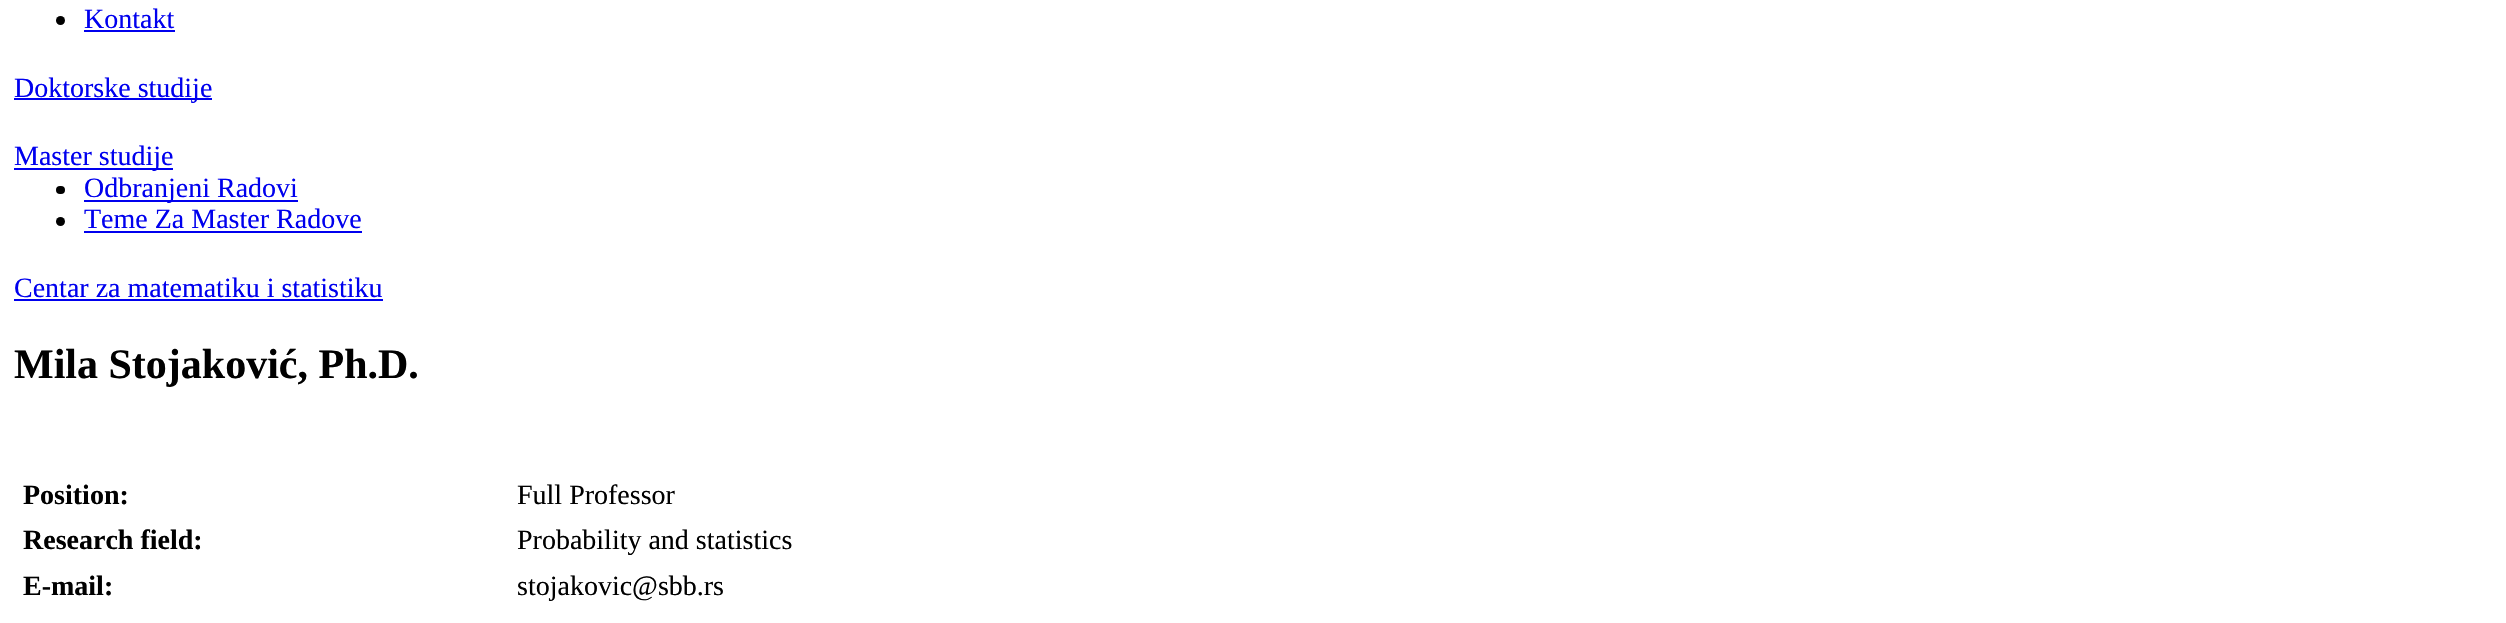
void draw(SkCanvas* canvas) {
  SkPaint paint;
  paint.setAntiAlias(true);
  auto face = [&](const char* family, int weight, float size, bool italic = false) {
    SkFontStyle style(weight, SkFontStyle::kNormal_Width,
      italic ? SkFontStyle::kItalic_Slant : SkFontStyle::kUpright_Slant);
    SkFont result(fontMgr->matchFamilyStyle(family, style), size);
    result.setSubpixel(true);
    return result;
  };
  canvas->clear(0xffffffff);
  paint.setColor(0xff000000);
  canvas->drawCircle(60.5f, 20.5f, 4.5f, paint);
  {
    const struct { float x, y, w, h; SkColor color; } items[] = {
      {84, 30, 91, 2, 0xff0000ee},
      {14, 98, 198, 2, 0xff0000ee},
      {14, 168, 159, 2, 0xff0000ee},
    };
    for (auto [x, y, w, h, color] : items) {
      paint.setColor(color);
      canvas->drawRect(SkRect::MakeXYWH(x, y, w, h), paint);
    }
  }
  paint.setColor(0xff000000);
  canvas->drawRoundRect(SkRect::MakeXYWH(56, 186, 9, 8), 4, 4, paint);
  paint.setColor(0xff0000ee);
  canvas->drawRect(SkRect::MakeXYWH(84, 200, 214, 2), paint);
  paint.setColor(0xff000000);
  canvas->drawCircle(60.5f, 221.5f, 4.5f, paint);
  paint.setColor(0xff0000ee);
  canvas->drawRect(SkRect::MakeXYWH(84, 231, 278, 2), paint);
  canvas->drawRect(SkRect::MakeXYWH(14, 299, 369, 2), paint);
  auto f0 = face("Liberation Serif", 400, 28);
  {
    const struct { const char* s; float x, y; } items[] = {
      {"Kontakt", 84, 28},
      {"Doktorske studije", 14, 97},
      {"Master studije", 14, 165},
      {"Odbranjeni Radovi", 84, 197},
      {"Teme Za Master Radove", 84, 228},
      {"Centar za matematiku i statistiku", 14, 297},
    };
    for (auto [s, x, y] : items) {
      canvas->drawString(s, x, y, f0, paint);
    }
  }
  auto f1 = face("Liberation Serif", 700, 42);
  paint.setColor(0xff000000);
  canvas->drawString("Mila Stojaković, Ph.D.", 14, 378, f1, paint);
  auto f2 = face("Liberation Serif", 700, 28);
  canvas->drawString("Position:", 23, 504, f2, paint);
  canvas->drawString("Full Professor", 517, 504, f0, paint);
  canvas->drawString("Research field:", 23, 549, f2, paint);
  canvas->drawString("Probability and statistics", 517, 549, f0, paint);
  canvas->drawString("E-mail:", 23, 595, f2, paint);
  canvas->drawString("stojakovic@sbb.rs", 517, 595, f0, paint);
}
